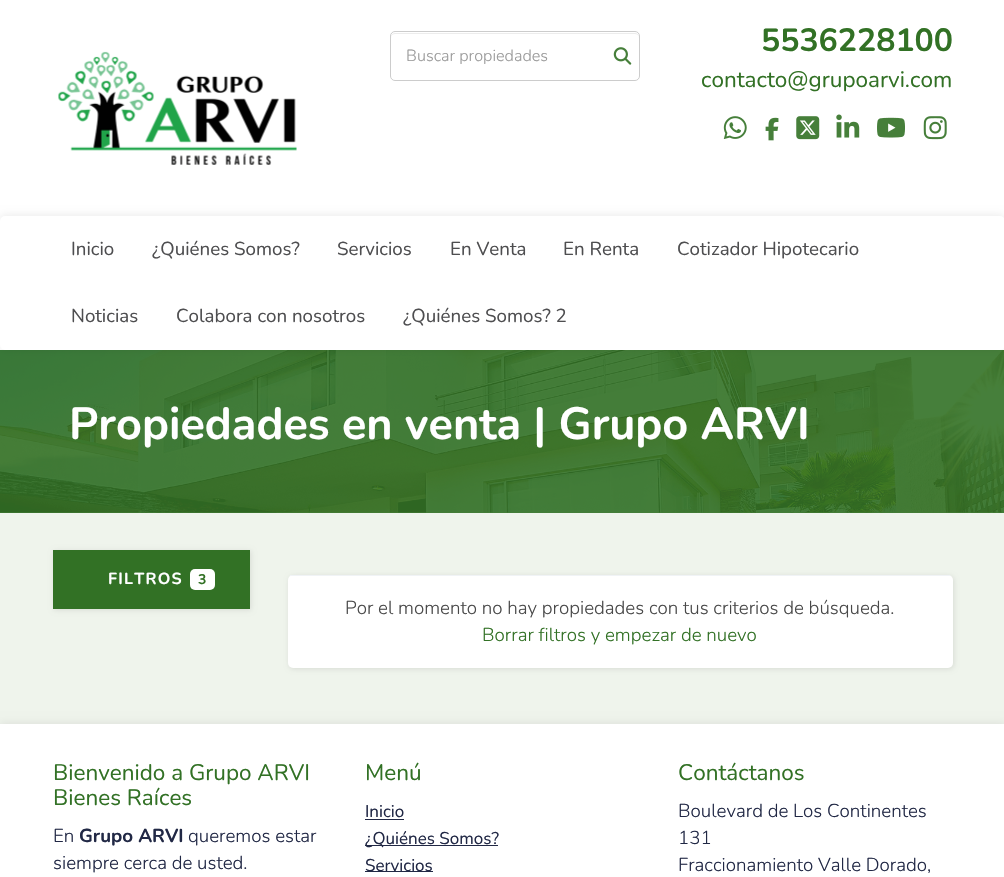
void draw(SkCanvas* canvas) {
  SkPaint paint;
  paint.setAntiAlias(true);
  auto face = [&](const char* family, int weight, float size, bool italic = false) {
    SkFontStyle style(weight, SkFontStyle::kNormal_Width,
      italic ? SkFontStyle::kItalic_Slant : SkFontStyle::kUpright_Slant);
    SkFont result(fontMgr->matchFamilyStyle(family, style), size);
    result.setSubpixel(true);
    return result;
  };
  auto writeSpaced = [&](const char* s, float x, float y, const SkFont& font, const SkPaint& ink, float letter, float word) {
    std::vector<SkGlyphID> glyphs(font.countText(s, strlen(s), SkTextEncoding::kUTF8));
    std::vector<float> xs(glyphs.size());
    font.textToGlyphs(s, strlen(s), SkTextEncoding::kUTF8, glyphs);
    font.getXPos(glyphs, xs, x);
    float extra = 0;
    for (size_t i = 0; i < glyphs.size(); i++) {
      xs[i] += extra;
      extra += letter + word * (glyphs[i] == font.unicharToGlyph(' '));
    }
    canvas->drawTextBlob(SkTextBlob::MakeFromPosHGlyphs(glyphs, xs, y, font), 0, 0, ink);
  };
  auto paste = [&](const char* path, float x, float y, float w, float h) {
    auto image = SkImages::DeferredFromEncodedData(SkData::MakeFromFileName(path));
    canvas->drawImageRect(image, SkRect::MakeXYWH(x, y, w, h), SkSamplingOptions());
  };
  auto shape = [&](const char* data, bool evenOdd = false) {
    SkPath result = *SkParsePath::FromSVGString(data);
    if (evenOdd) result.setFillType(SkPathFillType::kEvenOdd);
    return result;
  };
  canvas->clear(0xffeff4ec);
  paint.setColor(0xff457e39);
  canvas->drawRect(SkRect::MakeXYWH(0, 512, 1004, 1), paint);
  paint.setColor(0xffffffff);
  canvas->drawRect(SkRect::MakeXYWH(0, 0, 1004, 350), paint);
  paste("img/1.png", 58, 51, 239, 114);
  paint.setColor(0xffececec);
  canvas->drawPath(shape("M395 34H635C637 34 639 35 639 38V37C639 35 637 33 635 33H395C393 33 391 35 391 37V38C391 35 393 34 395 34Z"), paint);
  paint.setStroke(true);
  paint.setStrokeWidth(1);
  paint.setColor(0xffcccccc);
  canvas->drawRoundRect(SkRect::MakeXYWH(390.5f, 31.5f, 249, 49), 4.5f, 4.5f, paint);
  paste("img/2.png", 613, 47, 19, 18);
  paste("img/3.png", 723, 116, 24, 23);
  paste("img/4.png", 765, 117, 14, 24);
  paste("img/5.png", 796, 116, 24, 24);
  paste("img/6.png", 836, 114, 24, 24);
  paste("img/7.png", 877, 117, 28, 21);
  paste("img/8.png", 923, 116, 24, 24);
  paste("img/9.png", 0, 350, 1004, 163);
  paint.setStroke(false);
  paint.setColor(0x14000000);
  paint.setMaskFilter(SkMaskFilter::MakeBlur(kNormal_SkBlurStyle, 4));
  canvas->drawRoundRect(SkRect::MakeXYWH(0, 215, 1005, 134), 5, 5, paint);
  paint.setMaskFilter(nullptr);
  paint.setColor(0xffffffff);
  canvas->drawRoundRect(SkRect::MakeXYWH(0, 216, 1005, 134), 5, 5, paint);
  paint.setColor(0x1a000000);
  paint.setMaskFilter(SkMaskFilter::MakeBlur(kNormal_SkBlurStyle, 2.5f));
  canvas->drawRect(SkRect::MakeXYWH(54, 551, 197, 59), paint);
  paint.setMaskFilter(nullptr);
  paint.setColor(0xff327125);
  canvas->drawRect(SkRect::MakeXYWH(53, 550, 197, 59), paint);
  paint.setColor(0xffffffff);
  canvas->drawRoundRect(SkRect::MakeXYWH(190, 569, 25, 21), 5, 5, paint);
  paint.setColor(0x1a000000);
  paint.setMaskFilter(SkMaskFilter::MakeBlur(kNormal_SkBlurStyle, 2.5f));
  canvas->drawRoundRect(SkRect::MakeXYWH(289, 576, 665, 93), 5, 5, paint);
  paint.setMaskFilter(nullptr);
  paint.setColor(0xffffffff);
  canvas->drawRoundRect(SkRect::MakeXYWH(288, 575, 665, 93), 5, 5, paint);
  paint.setColor(0xfff0f3f6);
  canvas->drawRect(SkRect::MakeXYWH(290, 575, 660, 1), paint);
  paint.setColor(0x14000000);
  paint.setMaskFilter(SkMaskFilter::MakeBlur(kNormal_SkBlurStyle, 4));
  canvas->drawRect(SkRect::MakeXYWH(0, 723, 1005, 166), paint);
  paint.setMaskFilter(nullptr);
  {
    const struct { float x, y, w, h; SkColor color; } items[] = {
      {0, 724, 1004, 153, 0xffffffff},
      {365, 819, 39, 1, 0xff212845},
      {365, 845, 133, 1, 0xff212845},
      {365, 871, 68, 1, 0xff212845},
    };
    for (auto [x, y, w, h, color] : items) {
      paint.setColor(color);
      canvas->drawRect(SkRect::MakeXYWH(x, y, w, h), paint);
    }
  }
  auto f0 = face("Nunito", 300, 16.25f);
  paint.setColor(0xff999999);
  canvas->drawString("Buscar propiedades", 406, 61, f0, paint);
  auto f1 = face("Nunito", 700, 32);
  paint.setColor(0xff327125);
  canvas->drawString("5536228100", 761, 51, f1, paint);
  auto f2 = face("Nunito", 400, 22.5f);
  canvas->drawString("contacto@grupoarvi.com", 701, 87, f2, paint);
  auto f3 = face("Nunito", 400, 18.75f);
  paint.setColor(0xff4e4e50);
  {
    const struct { const char* s; float x, y; } items[] = {
      {"Inicio", 71, 255},
      {"¿Quiénes Somos?", 152, 255},
      {"Servicios", 337, 255},
      {"En Venta", 450, 255},
      {"En Renta", 563, 255},
      {"Cotizador Hipotecario", 677, 255},
      {"Noticias", 71, 322},
      {"Colabora con nosotros", 176, 322},
      {"¿Quiénes Somos? 2", 403, 322},
    };
    for (auto [s, x, y] : items) {
      canvas->drawString(s, x, y, f3, paint);
    }
  }
  auto f4 = face("Nunito", 700, 45);
  paint.setColor(0xffffffff);
  canvas->drawString("Propiedades en venta | Grupo ARVI", 69, 439, f4, paint);
  auto f5 = face("Nunito", 700, 16);
  writeSpaced("FILTROS", 108, 584, f5, paint, 1.25f, 0);
  auto f6 = face("Nunito", 700, 14);
  paint.setColor(0xff327125);
  writeSpaced("3", 198, 584, f6, paint, 1.25f, 0);
  auto f7 = face("Nunito", 300, 18.75f);
  paint.setColor(0xff494949);
  canvas->drawString("Por el momento no hay propiedades con tus criterios de búsqueda.", 345, 614, f7, paint);
  paint.setColor(0xff327125);
  canvas->drawString("Borrar filtros y empezar de nuevo", 482, 641, f7, paint);
  canvas->drawString("Bienvenido a Grupo ARVI", 53, 780, f2, paint);
  canvas->drawString("Bienes Raíces", 53, 805, f2, paint);
  paint.setColor(0xff212845);
  canvas->drawString("En", 53, 842, f7, paint);
  auto f8 = face("Nunito", 700, 18.75f);
  canvas->drawString("Grupo ARVI", 79, 842, f8, paint);
  canvas->drawString("queremos estar", 188, 842, f7, paint);
  canvas->drawString("siempre cerca de usted.", 53, 869, f7, paint);
  paint.setColor(0xff327125);
  canvas->drawString("Menú", 365, 780, f2, paint);
  auto f9 = face("Nunito", 400, 17);
  paint.setColor(0xff212845);
  {
    const struct { const char* s; float x, y; } items[] = {
      {"Inicio", 365, 817},
      {"¿Quiénes Somos?", 365, 844},
      {"Servicios", 365, 871},
    };
    for (auto [s, x, y] : items) {
      canvas->drawString(s, x, y, f9, paint);
    }
  }
  paint.setColor(0xff327125);
  canvas->drawString("Contáctanos", 678, 780, f2, paint);
  paint.setColor(0xff212845);
  {
    const struct { const char* s; float x, y; } items[] = {
      {"Boulevard de Los Continentes", 678, 817},
      {"131", 678, 844},
      {"Fraccionamiento Valle Dorado,", 678, 871},
    };
    for (auto [s, x, y] : items) {
      canvas->drawString(s, x, y, f7, paint);
    }
  }
}
